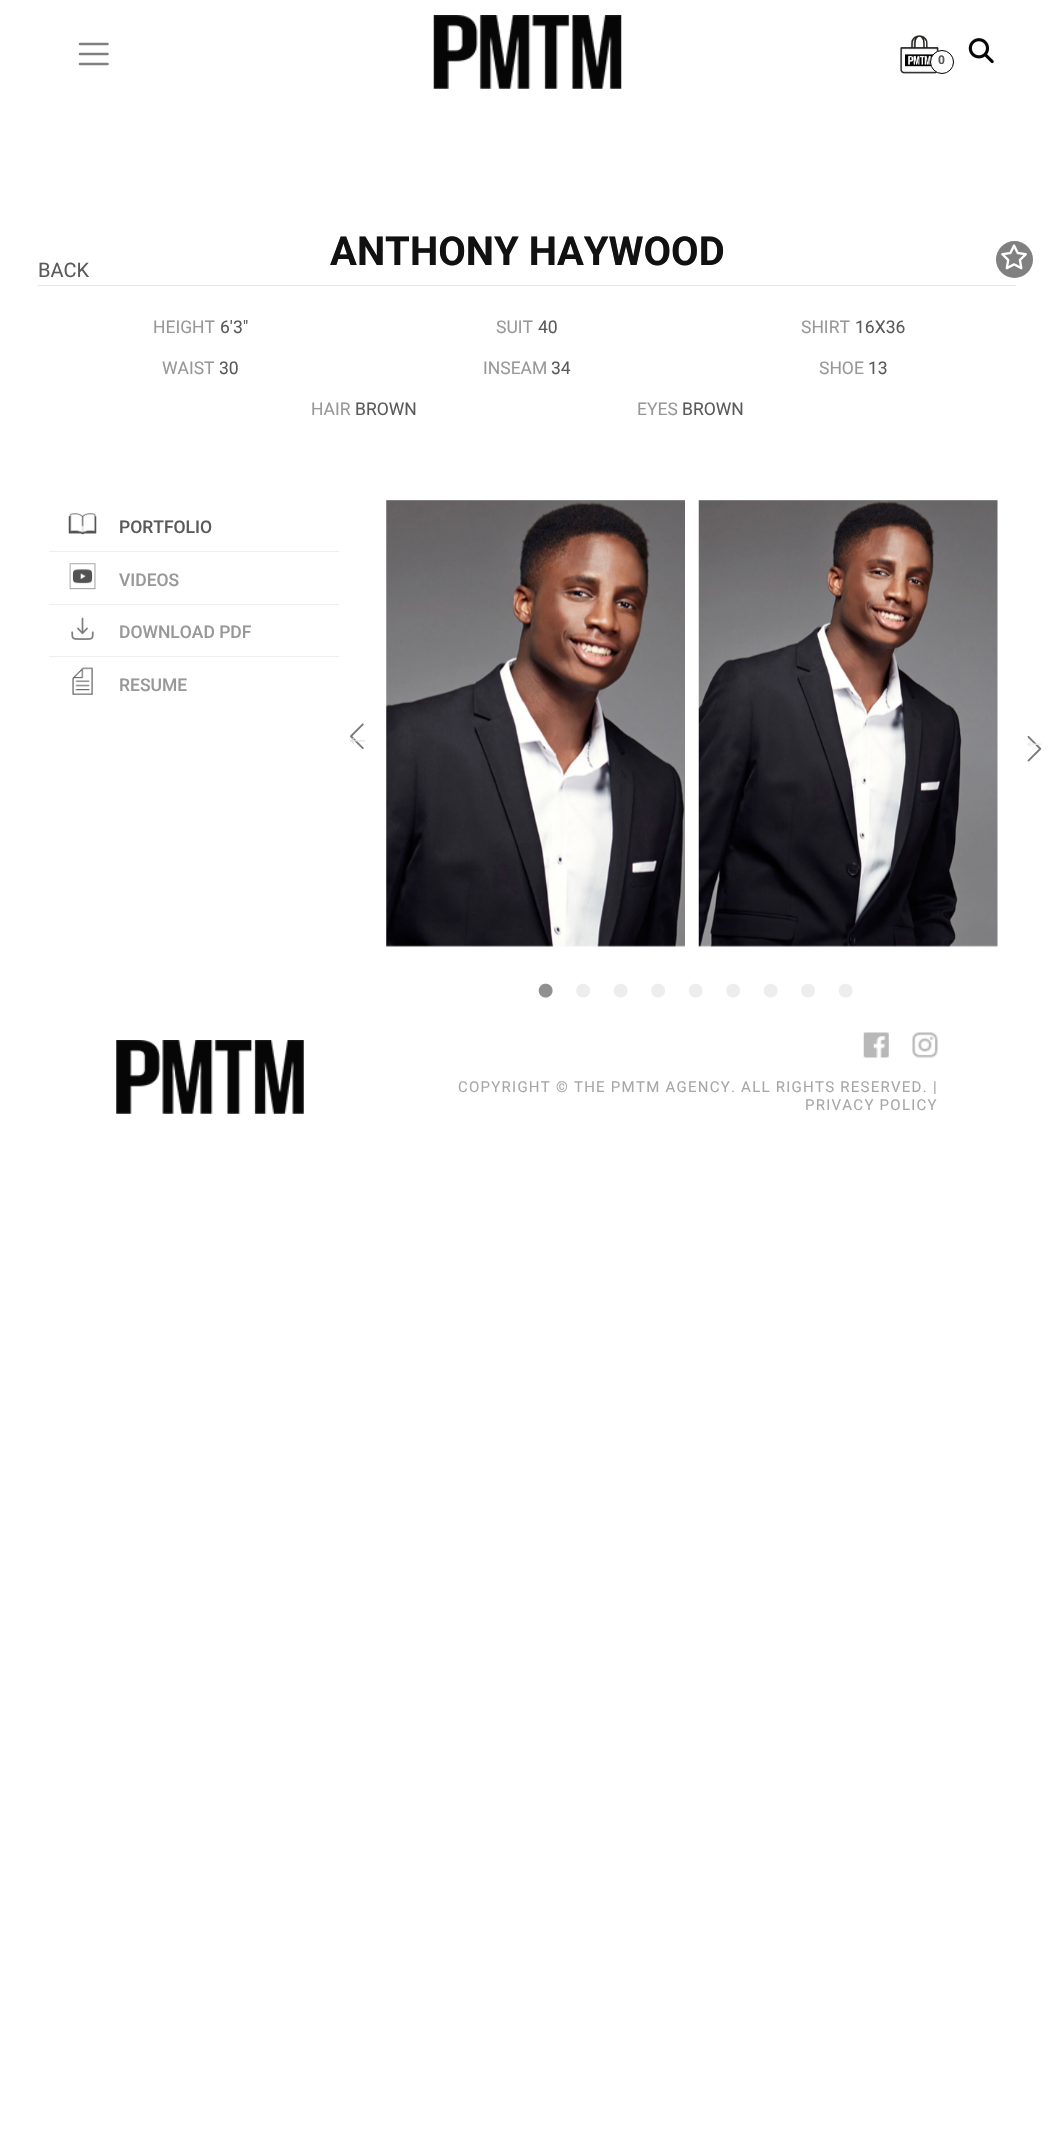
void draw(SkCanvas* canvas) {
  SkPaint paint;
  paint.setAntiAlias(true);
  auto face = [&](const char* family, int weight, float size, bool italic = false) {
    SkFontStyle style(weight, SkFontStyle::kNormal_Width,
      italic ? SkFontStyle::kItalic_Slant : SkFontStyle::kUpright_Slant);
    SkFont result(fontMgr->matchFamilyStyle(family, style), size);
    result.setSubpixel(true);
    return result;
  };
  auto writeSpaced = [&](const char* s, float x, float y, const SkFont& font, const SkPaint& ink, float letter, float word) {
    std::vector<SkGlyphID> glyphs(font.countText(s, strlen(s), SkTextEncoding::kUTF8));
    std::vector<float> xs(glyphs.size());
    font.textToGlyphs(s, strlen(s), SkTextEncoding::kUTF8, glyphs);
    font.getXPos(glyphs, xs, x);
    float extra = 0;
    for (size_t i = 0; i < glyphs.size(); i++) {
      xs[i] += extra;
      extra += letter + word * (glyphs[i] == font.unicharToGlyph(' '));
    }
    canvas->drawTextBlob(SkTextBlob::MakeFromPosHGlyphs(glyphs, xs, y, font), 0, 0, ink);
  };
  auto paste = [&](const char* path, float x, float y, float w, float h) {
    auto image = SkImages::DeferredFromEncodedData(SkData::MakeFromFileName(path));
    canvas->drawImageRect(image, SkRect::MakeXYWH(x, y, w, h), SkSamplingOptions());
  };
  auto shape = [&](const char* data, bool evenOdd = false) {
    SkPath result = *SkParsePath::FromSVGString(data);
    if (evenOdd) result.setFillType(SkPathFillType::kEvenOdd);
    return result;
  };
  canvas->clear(0xffffffff);
  paste("img/1.png", 433, 15, 189, 74);
  paint.setStroke(true);
  paint.setStrokeWidth(2.5f);
  paint.setStrokeCap(SkPaint::kRound_Cap);
  paint.setColor(0xff808080);
  canvas->drawPath(shape("M80 44H107.5M80 54H107.5M80 64H107.5"), paint);
  paste("img/2.png", 900, 35, 39, 39);
  paint.setStroke(false);
  paint.setColor(0xffffffff);
  canvas->drawCircle(942, 62, 11.5f, paint);
  paint.setStroke(true);
  paint.setStrokeWidth(1);
  paint.setStrokeCap(SkPaint::kButt_Cap);
  paint.setColor(0xff000000);
  canvas->drawCircle(942, 62, 11.5f, paint);
  paste("img/3.png", 968, 38, 26, 26);
  paint.setStroke(false);
  paint.setColor(0xff808080);
  canvas->drawCircle(1014.5f, 259.5f, 18.5f, paint);
  paste("img/4.png", 1001, 244, 26, 26);
  paint.setColor(0xffe6e6e6);
  canvas->drawRect(SkRect::MakeXYWH(38, 285, 978, 1), paint);
  paste("img/5.png", 68, 512, 29, 23);
  paint.setColor(0xffeeeeee);
  canvas->drawRect(SkRect::MakeXYWH(49, 551, 290, 1), paint);
  paste("img/6.png", 69, 563, 27, 27);
  canvas->drawRect(SkRect::MakeXYWH(49, 604, 290, 1), paint);
  paste("img/7.png", 71, 617, 23, 23);
  canvas->drawRect(SkRect::MakeXYWH(49, 656, 290, 1), paint);
  paste("img/8.png", 72, 667, 21, 28);
  paste("img/9.png", 350, 723, 14, 26);
  paste("img/10.png", 386, 500, 299, 447);
  paste("img/11.png", 698, 500, 300, 447);
  paste("img/12.png", 1027, 736, 15, 26);
  paste("img/13.png", 538, 983, 15, 15);
  paste("img/14.png", 576, 983, 14, 15);
  paste("img/15.png", 613, 983, 15, 15);
  paste("img/14.png", 651, 983, 14, 15);
  paste("img/15.png", 688, 983, 15, 15);
  paste("img/14.png", 726, 983, 14, 15);
  paste("img/15.png", 763, 983, 15, 15);
  paste("img/14.png", 801, 983, 14, 15);
  paste("img/15.png", 838, 983, 15, 15);
  paste("img/16.png", 116, 1040, 188, 74);
  paste("img/17.png", 863, 1032, 26, 26);
  paste("img/18.png", 912, 1032, 26, 26);
  auto f0 = face("Roboto", 700, 12);
  paint.setColor(0xff5a5a5a);
  canvas->drawString("0", 938, 64, f0, paint);
  auto f1 = face("Roboto", 400, 20);
  canvas->drawString("BACK", 38, 277, f1, paint);
  auto f2 = face("Roboto", 700, 40);
  paint.setColor(0xff111111);
  canvas->drawString("ANTHONY HAYWOOD", 330, 265, f2, paint);
  auto f3 = face("Roboto", 400, 17.5f);
  paint.setColor(0xff989898);
  canvas->drawString("HEIGHT", 153, 333, f3, paint);
  paint.setColor(0xff5a5a5a);
  canvas->drawString("6'3\"", 220, 333, f3, paint);
  paint.setColor(0xff989898);
  canvas->drawString("SUIT", 496, 333, f3, paint);
  paint.setColor(0xff5a5a5a);
  canvas->drawString("40", 538, 333, f3, paint);
  paint.setColor(0xff989898);
  canvas->drawString("SHIRT", 801, 333, f3, paint);
  paint.setColor(0xff5a5a5a);
  canvas->drawString("16X36", 855, 333, f3, paint);
  paint.setColor(0xff989898);
  canvas->drawString("WAIST", 162, 374, f3, paint);
  paint.setColor(0xff5a5a5a);
  canvas->drawString("30", 219, 374, f3, paint);
  paint.setColor(0xff989898);
  canvas->drawString("INSEAM", 483, 374, f3, paint);
  paint.setColor(0xff5a5a5a);
  canvas->drawString("34", 551, 374, f3, paint);
  paint.setColor(0xff989898);
  canvas->drawString("SHOE", 819, 374, f3, paint);
  paint.setColor(0xff5a5a5a);
  canvas->drawString("13", 868, 374, f3, paint);
  paint.setColor(0xff989898);
  canvas->drawString("HAIR", 311, 415, f3, paint);
  paint.setColor(0xff5a5a5a);
  canvas->drawString("BROWN", 355, 415, f3, paint);
  paint.setColor(0xff989898);
  canvas->drawString("EYES", 637, 415, f3, paint);
  paint.setColor(0xff5a5a5a);
  canvas->drawString("BROWN", 682, 415, f3, paint);
  auto f4 = face("Roboto", 500, 17.5f);
  canvas->drawString("PORTFOLIO", 119, 533, f4, paint);
  paint.setColor(0xff989898);
  {
    const struct { const char* s; float x, y; } items[] = {
      {"VIDEOS", 119, 586},
      {"DOWNLOAD PDF", 119, 638},
      {"RESUME", 119, 691},
    };
    for (auto [s, x, y] : items) {
      canvas->drawString(s, x, y, f4, paint);
    }
  }
  auto f5 = face("Liberation Sans", 400, 25);
  paint.setColor(0xffe1e1e1);
  canvas->drawString("←", 345, 745, f5, paint);
  paint.setColor(0xffeeeeee);
  canvas->save();
  canvas->rotate(180, 1047, 740);
  canvas->drawString("→", 1047, 740, f5, paint);
  canvas->restore();
  auto f6 = face("Roboto", 400, 15);
  paint.setColor(0xffa7a7a7);
  writeSpaced("COPYRIGHT © THE PMTM AGENCY. ALL RIGHTS RESERVED. |", 458, 1092, f6, paint, 1.25f, 0);
  writeSpaced("PRIVACY POLICY", 805, 1110, f6, paint, 1.25f, 0);
}
